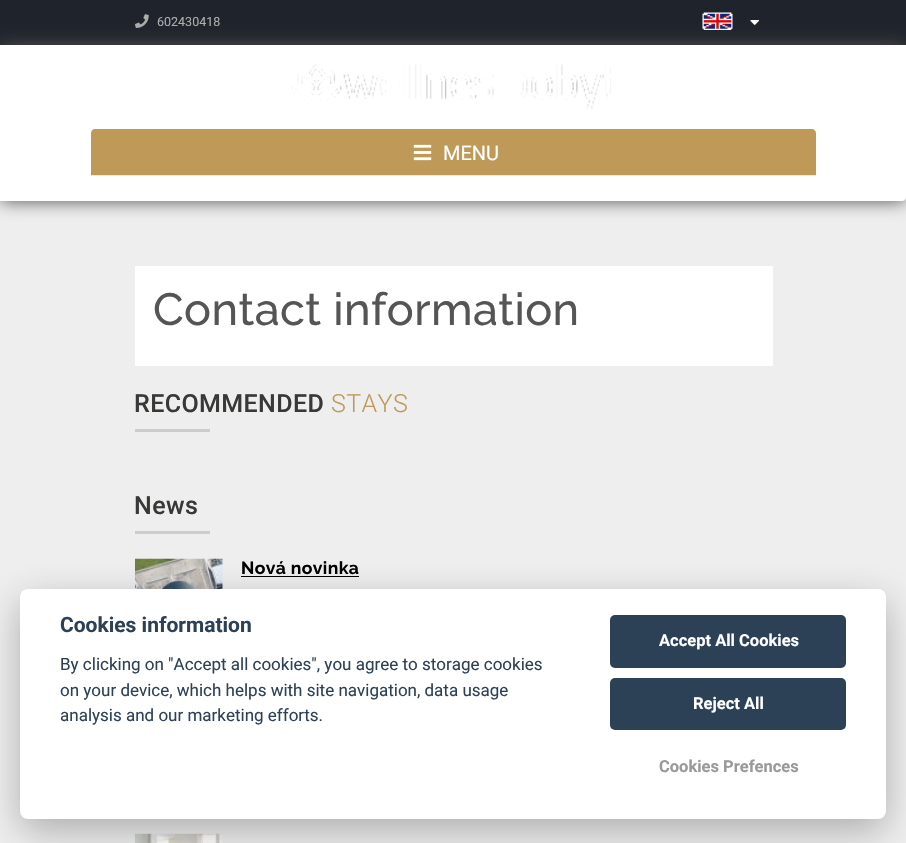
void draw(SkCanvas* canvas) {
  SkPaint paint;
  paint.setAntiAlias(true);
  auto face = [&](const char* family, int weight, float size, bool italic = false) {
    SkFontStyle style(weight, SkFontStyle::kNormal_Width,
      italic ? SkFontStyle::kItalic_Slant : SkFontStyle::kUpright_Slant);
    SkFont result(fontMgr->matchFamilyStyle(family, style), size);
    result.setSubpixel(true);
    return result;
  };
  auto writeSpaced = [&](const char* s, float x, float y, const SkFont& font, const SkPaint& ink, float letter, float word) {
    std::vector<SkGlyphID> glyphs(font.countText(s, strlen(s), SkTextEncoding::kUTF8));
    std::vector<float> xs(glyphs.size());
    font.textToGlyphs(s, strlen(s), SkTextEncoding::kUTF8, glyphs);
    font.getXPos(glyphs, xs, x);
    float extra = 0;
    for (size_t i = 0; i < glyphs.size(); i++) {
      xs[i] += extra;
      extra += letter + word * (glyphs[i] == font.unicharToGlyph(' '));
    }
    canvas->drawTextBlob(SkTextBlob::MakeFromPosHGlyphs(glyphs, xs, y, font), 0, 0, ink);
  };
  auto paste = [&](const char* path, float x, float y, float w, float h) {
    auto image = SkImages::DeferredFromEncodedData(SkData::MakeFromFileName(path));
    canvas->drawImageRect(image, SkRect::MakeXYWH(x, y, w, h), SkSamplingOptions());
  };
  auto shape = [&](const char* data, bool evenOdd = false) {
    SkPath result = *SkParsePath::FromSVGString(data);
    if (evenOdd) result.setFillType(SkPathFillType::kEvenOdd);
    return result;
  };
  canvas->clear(0xffffffff);
  paint.setColor(0xff1f232b);
  canvas->drawRect(SkRect::MakeXYWH(0, 0, 906, 45), paint);
  paste("img/1.png", 135, 14, 14, 14);
  paste("img/2.png", 702, 12, 31, 18);
  paste("img/3.png", 750, 20, 9, 5);
  paint.setColor(0xffefeeee);
  canvas->drawRect(SkRect::MakeXYWH(0, 201, 906, 642), paint);
  paint.setColor(0xff4f4f4f);
  paint.setMaskFilter(SkMaskFilter::MakeBlur(kNormal_SkBlurStyle, 9));
  canvas->drawRoundRect(SkRect::MakeXYWH(0, 45, 906, 156), 4, 4, paint);
  paint.setMaskFilter(nullptr);
  paint.setColor(0xffffffff);
  canvas->drawPath(shape("M0 45H906V197C906 199 904 201 902 201H0Z"), paint);
  paste("img/4.png", 291, 64, 320, 46);
  paint.setColor(0xffbf9958);
  canvas->drawPath(shape("M95 129H812C814 129 816 131 816 133V176H91V133C91 131 93 129 95 129Z"), paint);
  paint.setColor(0xffe7e7e7);
  canvas->drawRect(SkRect::MakeXYWH(91, 175, 725, 1), paint);
  paste("img/5.png", 413, 144, 19, 17);
  {
    const struct { float x, y, w, h; SkColor color; } items[] = {
      {135, 266, 638, 100, 0xffffffff},
      {135, 429, 75, 3, 0xffcccccc},
      {135, 531, 75, 3, 0xffcccccc},
    };
    for (auto [x, y, w, h, color] : items) {
      paint.setColor(color);
      canvas->drawRect(SkRect::MakeXYWH(x, y, w, h), paint);
    }
  }
  paste("img/6.png", 135, 558, 88, 31);
  paint.setColor(0xff000000);
  canvas->drawRect(SkRect::MakeXYWH(241, 576, 118, 1), paint);
  paste("img/7.png", 135, 833, 88, 10);
  paint.setColor(0x47020203);
  paint.setMaskFilter(SkMaskFilter::MakeBlur(kNormal_SkBlurStyle, 19));
  canvas->drawRoundRect(SkRect::MakeXYWH(20, 601, 866, 230), 8, 8, paint);
  paint.setMaskFilter(nullptr);
  paint.setColor(0xffffffff);
  canvas->drawRoundRect(SkRect::MakeXYWH(20, 589, 866, 230), 8, 8, paint);
  paint.setColor(0xff2d4156);
  canvas->drawRoundRect(SkRect::MakeXYWH(610, 615, 236, 53), 5, 5, paint);
  canvas->drawRoundRect(SkRect::MakeXYWH(610, 678, 236, 52), 5, 5, paint);
  auto f0 = face("Roboto", 400, 12.5f);
  paint.setColor(0xffacacac);
  canvas->drawString("602430418", 157, 26, f0, paint);
  auto f1 = face("Roboto", 400, 20);
  paint.setColor(0xffffffff);
  canvas->drawString("MENU", 443, 160, f1, paint);
  auto f2 = face("Raleway", 500, 45);
  paint.setColor(0xff555555);
  writeSpaced("Contact information", 153, 325, f2, paint, 0.4f, 0);
  auto f3 = face("Roboto", 500, 25);
  paint.setColor(0xff383837);
  writeSpaced("RECOMMENDED", 134, 412, f3, paint, 0.4f, 0);
  auto f4 = face("Roboto", 300, 25);
  paint.setColor(0xffbf9958);
  writeSpaced("STAYS", 331, 412, f4, paint, 0.4f, 0);
  paint.setColor(0xff383837);
  writeSpaced("News", 134, 514, f3, paint, 0.4f, 0);
  auto f5 = face("Raleway", 700, 17.5f);
  paint.setColor(0xff000000);
  writeSpaced("Nová novinka", 241, 574, f5, paint, 0.4f, 0);
  auto f6 = face("Roboto", 700, 21);
  paint.setColor(0xff2d4156);
  canvas->drawString("Cookies information", 60, 632, f6, paint);
  auto f7 = face("Roboto", 400, 17);
  {
    const struct { const char* s; float x, y; } items[] = {
      {"By clicking on \"Accept all cookies\", you agree to storage cookies", 60, 670},
      {"on your device, which helps with site navigation, data usage", 60, 696},
      {"analysis and our marketing efforts.", 60, 721},
    };
    for (auto [s, x, y] : items) {
      canvas->drawString(s, x, y, f7, paint);
    }
  }
  auto f8 = face("Roboto", 700, 16.5f);
  paint.setColor(0xffffffff);
  canvas->drawString("Accept All Cookies", 659, 646, f8, paint);
  canvas->drawString("Reject All", 693, 709, f8, paint);
  paint.setColor(0xff999999);
  canvas->drawString("Cookies Prefences", 659, 772, f8, paint);
}
